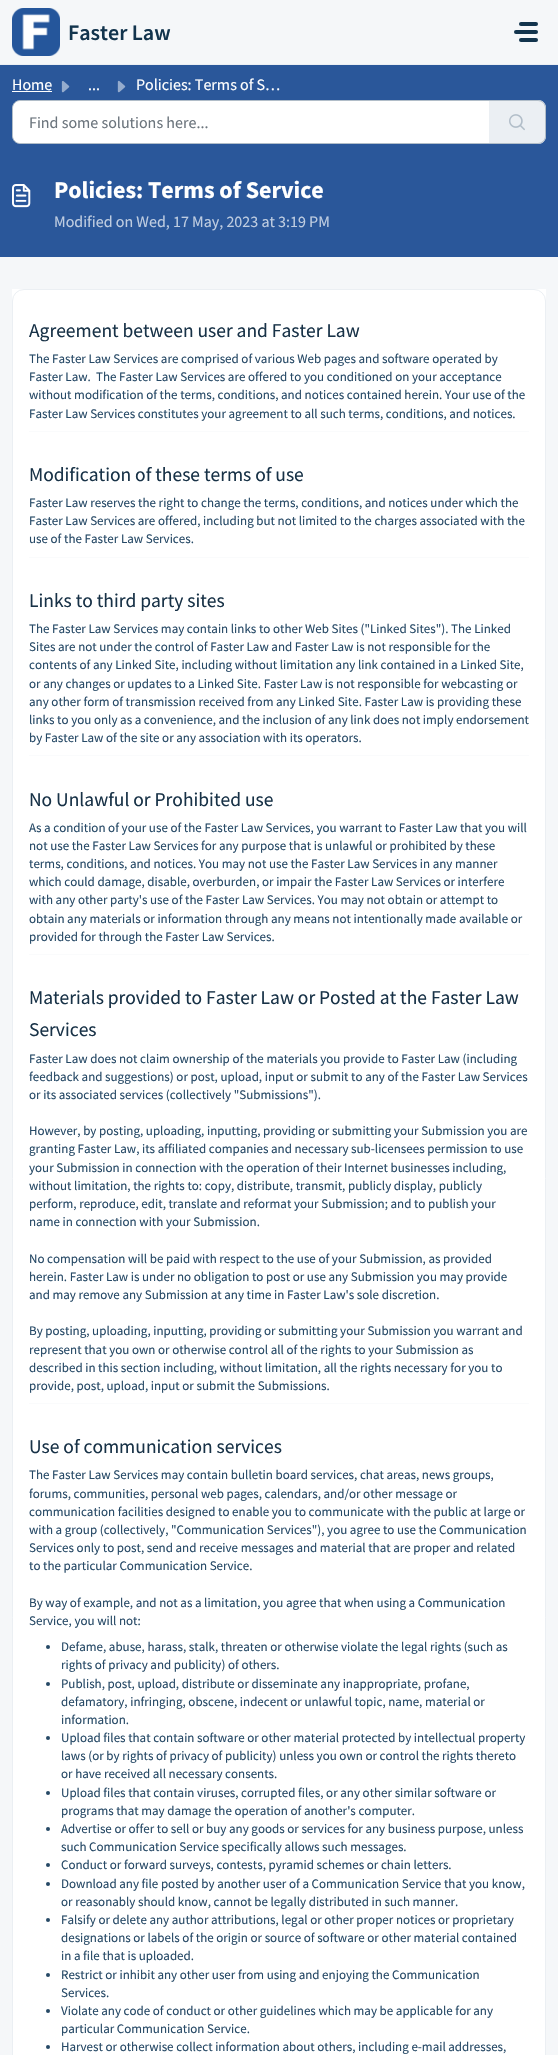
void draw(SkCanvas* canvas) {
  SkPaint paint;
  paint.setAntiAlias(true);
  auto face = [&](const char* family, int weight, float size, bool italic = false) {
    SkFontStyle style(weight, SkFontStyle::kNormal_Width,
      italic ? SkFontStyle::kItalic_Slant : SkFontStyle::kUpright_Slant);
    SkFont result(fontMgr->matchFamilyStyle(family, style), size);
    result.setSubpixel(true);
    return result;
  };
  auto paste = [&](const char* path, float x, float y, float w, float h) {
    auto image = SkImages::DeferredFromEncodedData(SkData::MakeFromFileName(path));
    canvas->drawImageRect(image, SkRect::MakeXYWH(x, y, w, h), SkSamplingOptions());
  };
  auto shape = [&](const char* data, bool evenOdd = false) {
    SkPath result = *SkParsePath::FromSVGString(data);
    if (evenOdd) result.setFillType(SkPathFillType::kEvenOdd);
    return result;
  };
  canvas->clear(0xfff5f7f9);
  paint.setColor(0xffebeff3);
  canvas->drawRect(SkRect::MakeXYWH(0, 64, 558, 1), paint);
  paste("img/1.png", 12, 8, 48, 48);
  paint.setColor(0xff12344d);
  canvas->drawRoundRect(SkRect::MakeXYWH(519, 22, 19, 4), 2, 2, paint);
  canvas->drawRoundRect(SkRect::MakeXYWH(514, 30, 24, 4), 2, 2, paint);
  canvas->drawRoundRect(SkRect::MakeXYWH(519, 38, 19, 4), 2, 2, paint);
  paint.setColor(0xff2a579a);
  canvas->drawRect(SkRect::MakeXYWH(0, 65, 558, 192), paint);
  paint.setColor(0xffffffff);
  canvas->drawRect(SkRect::MakeXYWH(12, 91, 40, 1), paint);
  paste("img/2.png", 61, 81, 9, 12);
  paste("img/3.png", 117, 80, 9, 13);
  canvas->drawPath(shape("M20 100.5H489.5V143.5H20C16 143.5 12.5 140 12.5 136V108C12.5 104 16 100.5 20 100.5Z"), paint);
  paint.setStroke(true);
  paint.setStrokeWidth(1);
  paint.setColor(0xffb1bdc8);
  canvas->drawPath(shape("M20 100.5H489.5V143.5H20C16 143.5 12.5 140 12.5 136V108C12.5 104 16 100.5 20 100.5Z"), paint);
  paint.setStroke(false);
  paint.setColor(0xffebeff3);
  canvas->drawPath(shape("M489 100H538C542.5 100 546 103.5 546 108V136C546 140.5 542.5 144 538 144H489Z"), paint);
  paint.setColor(0xffb1bdc8);
  canvas->drawPath(shape("M489 100H538C542 100 546 104 546 108V136C546 140 542 144 538 144H489ZM489 101H538C542 101 545 104 545 108V136C545 140 542 143 538 143H489Z", true), paint);
  paste("img/4.png", 509, 114, 16, 17);
  paste("img/5.png", 12, 184, 19, 24);
  paint.setColor(0xffffffff);
  canvas->drawRect(SkRect::MakeXYWH(12, 289, 534, 1766), paint);
  paint.setStroke(true);
  paint.setColor(0xffebeff3);
  canvas->drawRoundRect(SkRect::MakeXYWH(12.5f, 289.5f, 533, 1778), 11.5f, 11.5f, paint);
  paint.setStroke(false);
  {
    const struct { float x, y, w, h; SkColor color; } items[] = {
      {29, 431, 500, 1, 0xfffafbfc},
      {29, 557, 500, 1, 0xfffafbfc},
      {29, 755, 500, 1, 0xfffafbfc},
      {29, 954, 500, 1, 0xfffafbfc},
      {29, 1403, 500, 1, 0xfffafbfc},
    };
    for (auto [x, y, w, h, color] : items) {
      paint.setColor(color);
      canvas->drawRect(SkRect::MakeXYWH(x, y, w, h), paint);
    }
  }
  paint.setColor(0xff264966);
  canvas->drawCircle(48, 1647, 2, paint);
  canvas->drawCircle(48, 1684, 2, paint);
  canvas->drawCircle(48, 1738, 2, paint);
  canvas->drawCircle(48, 1793, 2, paint);
  canvas->drawCircle(48, 1829, 2, paint);
  canvas->drawCircle(48, 1865, 2, paint);
  canvas->drawCircle(48, 1884, 2, paint);
  canvas->drawCircle(48, 1920, 2, paint);
  canvas->drawCircle(48, 1975, 2, paint);
  canvas->drawCircle(48, 2011, 2, paint);
  canvas->drawCircle(48, 2047, 2, paint);
  auto f0 = face("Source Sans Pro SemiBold", 600, 22);
  paint.setColor(0xff12344d);
  canvas->drawString("Faster Law", 68, 40, f0, paint);
  auto f1 = face("Source Sans Pro", 400, 16);
  paint.setColor(0xffffffff);
  {
    const struct { const char* s; float x, y; } items[] = {
      {"Home", 12, 90},
      {"...", 88, 90},
      {"Policies: Terms of S…", 136, 90},
    };
    for (auto [s, x, y] : items) {
      canvas->drawString(s, x, y, f1, paint);
    }
  }
  paint.setColor(0xff6c757d);
  canvas->drawString("Find some solutions here...", 29, 128, f1, paint);
  auto f2 = face("Source Sans Pro", 700, 24);
  paint.setColor(0xffffffff);
  canvas->drawString("Policies: Terms of Service", 54, 198, f2, paint);
  paint.setColor(0xffbfcde1);
  canvas->drawString("Modified on Wed, 17 May, 2023 at 3:19 PM", 54, 227, f1, paint);
  auto f3 = face("Source Sans Pro", 400, 19.5f);
  paint.setColor(0xff183247);
  canvas->drawString("Agreement between user and Faster Law", 29, 337, f3, paint);
  auto f4 = face("Source Sans Pro", 400, 13);
  paint.setColor(0xff264966);
  {
    const struct { const char* s; float x, y; } items[] = {
      {"The Faster Law Services are comprised of various Web pages and software operated by", 29, 363},
      {"Faster Law.  The Faster Law Services are offered to you conditioned on your acceptance", 29, 381},
      {"without modification of the terms, conditions, and notices contained herein. Your use of the", 29, 399},
      {"Faster Law Services constitutes your agreement to all such terms, conditions, and notices.", 29, 418},
    };
    for (auto [s, x, y] : items) {
      canvas->drawString(s, x, y, f4, paint);
    }
  }
  paint.setColor(0xff183247);
  canvas->drawString("Modification of these terms of use", 29, 481, f3, paint);
  paint.setColor(0xff264966);
  {
    const struct { const char* s; float x, y; } items[] = {
      {"Faster Law reserves the right to change the terms, conditions, and notices under which the", 29, 507},
      {"Faster Law Services are offered, including but not limited to the charges associated with the", 29, 525},
      {"use of the Faster Law Services.", 29, 543},
    };
    for (auto [s, x, y] : items) {
      canvas->drawString(s, x, y, f4, paint);
    }
  }
  paint.setColor(0xff183247);
  canvas->drawString("Links to third party sites", 29, 607, f3, paint);
  paint.setColor(0xff264966);
  {
    const struct { const char* s; float x, y; } items[] = {
      {"The Faster Law Services may contain links to other Web Sites (\"Linked Sites\"). The Linked", 29, 633},
      {"Sites are not under the control of Faster Law and Faster Law is not responsible for the", 29, 651},
      {"contents of any Linked Site, including without limitation any link contained in a Linked Site,", 29, 669},
      {"or any changes or updates to a Linked Site. Faster Law is not responsible for webcasting or", 29, 688},
      {"any other form of transmission received from any Linked Site. Faster Law is providing these", 29, 706},
      {"links to you only as a convenience, and the inclusion of any link does not imply endorsement", 29, 724},
      {"by Faster Law of the site or any association with its operators.", 29, 742},
    };
    for (auto [s, x, y] : items) {
      canvas->drawString(s, x, y, f4, paint);
    }
  }
  paint.setColor(0xff183247);
  canvas->drawString("No Unlawful or Prohibited use", 29, 806, f3, paint);
  paint.setColor(0xff264966);
  {
    const struct { const char* s; float x, y; } items[] = {
      {"As a condition of your use of the Faster Law Services, you warrant to Faster Law that you will", 29, 832},
      {"not use the Faster Law Services for any purpose that is unlawful or prohibited by these", 29, 850},
      {"terms, conditions, and notices. You may not use the Faster Law Services in any manner", 29, 868},
      {"which could damage, disable, overburden, or impair the Faster Law Services or interfere", 29, 886},
      {"with any other party's use of the Faster Law Services. You may not obtain or attempt to", 29, 904},
      {"obtain any materials or information through any means not intentionally made available or", 29, 923},
      {"provided for through the Faster Law Services.", 29, 941},
    };
    for (auto [s, x, y] : items) {
      canvas->drawString(s, x, y, f4, paint);
    }
  }
  paint.setColor(0xff183247);
  canvas->drawString("Materials provided to Faster Law or Posted at the Faster Law", 29, 1004, f3, paint);
  canvas->drawString("Services", 29, 1036, f3, paint);
  paint.setColor(0xff264966);
  {
    const struct { const char* s; float x, y; } items[] = {
      {"Faster Law does not claim ownership of the materials you provide to Faster Law (including", 29, 1063},
      {"feedback and suggestions) or post, upload, input or submit to any of the Faster Law Services", 29, 1081},
      {"or its associated services (collectively \"Submissions\").", 29, 1099},
      {"However, by posting, uploading, inputting, providing or submitting your Submission you are", 29, 1135},
      {"granting Faster Law, its affiliated companies and necessary sub-licensees permission to use", 29, 1153},
      {"your Submission in connection with the operation of their Internet businesses including,", 29, 1172},
      {"without limitation, the rights to: copy, distribute, transmit, publicly display, publicly", 29, 1190},
      {"perform, reproduce, edit, translate and reformat your Submission; and to publish your", 29, 1208},
      {"name in connection with your Submission.", 29, 1226},
      {"No compensation will be paid with respect to the use of your Submission, as provided", 29, 1263},
      {"herein. Faster Law is under no obligation to post or use any Submission you may provide", 29, 1281},
      {"and may remove any Submission at any time in Faster Law's sole discretion.", 29, 1299},
      {"By posting, uploading, inputting, providing or submitting your Submission you warrant and", 29, 1335},
      {"represent that you own or otherwise control all of the rights to your Submission as", 29, 1354},
      {"described in this section including, without limitation, all the rights necessary for you to", 29, 1372},
      {"provide, post, upload, input or submit the Submissions.", 29, 1390},
    };
    for (auto [s, x, y] : items) {
      canvas->drawString(s, x, y, f4, paint);
    }
  }
  paint.setColor(0xff183247);
  canvas->drawString("Use of communication services", 29, 1453, f3, paint);
  paint.setColor(0xff264966);
  {
    const struct { const char* s; float x, y; } items[] = {
      {"The Faster Law Services may contain bulletin board services, chat areas, news groups,", 29, 1479},
      {"forums, communities, personal web pages, calendars, and/or other message or", 29, 1498},
      {"communication facilities designed to enable you to communicate with the public at large or", 29, 1516},
      {"with a group (collectively, \"Communication Services\"), you agree to use the Communication", 29, 1534},
      {"Services only to post, send and receive messages and material that are proper and related", 29, 1552},
      {"to the particular Communication Service.", 29, 1570},
      {"By way of example, and not as a limitation, you agree that when using a Communication", 29, 1607},
      {"Service, you will not:", 29, 1625},
      {"Defame, abuse, harass, stalk, threaten or otherwise violate the legal rights (such as", 61, 1651},
      {"rights of privacy and publicity) of others.", 61, 1669},
      {"Publish, post, upload, distribute or disseminate any inappropriate, profane,", 61, 1688},
      {"defamatory, infringing, obscene, indecent or unlawful topic, name, material or", 61, 1706},
      {"information.", 61, 1724},
      {"Upload files that contain software or other material protected by intellectual property", 61, 1742},
      {"laws (or by rights of privacy of publicity) unless you own or control the rights thereto", 61, 1760},
      {"or have received all necessary consents.", 61, 1778},
      {"Upload files that contain viruses, corrupted files, or any other similar software or", 61, 1797},
      {"programs that may damage the operation of another's computer.", 61, 1815},
      {"Advertise or offer to sell or buy any goods or services for any business purpose, unless", 61, 1833},
      {"such Communication Service specifically allows such messages.", 61, 1851},
      {"Conduct or forward surveys, contests, pyramid schemes or chain letters.", 61, 1869},
      {"Download any file posted by another user of a Communication Service that you know,", 61, 1888},
      {"or reasonably should know, cannot be legally distributed in such manner.", 61, 1906},
      {"Falsify or delete any author attributions, legal or other proper notices or proprietary", 61, 1924},
      {"designations or labels of the origin or source of software or other material contained", 61, 1942},
      {"in a file that is uploaded.", 61, 1960},
      {"Restrict or inhibit any other user from using and enjoying the Communication", 61, 1979},
      {"Services.", 61, 1997},
      {"Violate any code of conduct or other guidelines which may be applicable for any", 61, 2015},
      {"particular Communication Service.", 61, 2033},
      {"Harvest or otherwise collect information about others, including e-mail addresses,", 61, 2051},
    };
    for (auto [s, x, y] : items) {
      canvas->drawString(s, x, y, f4, paint);
    }
  }
}
